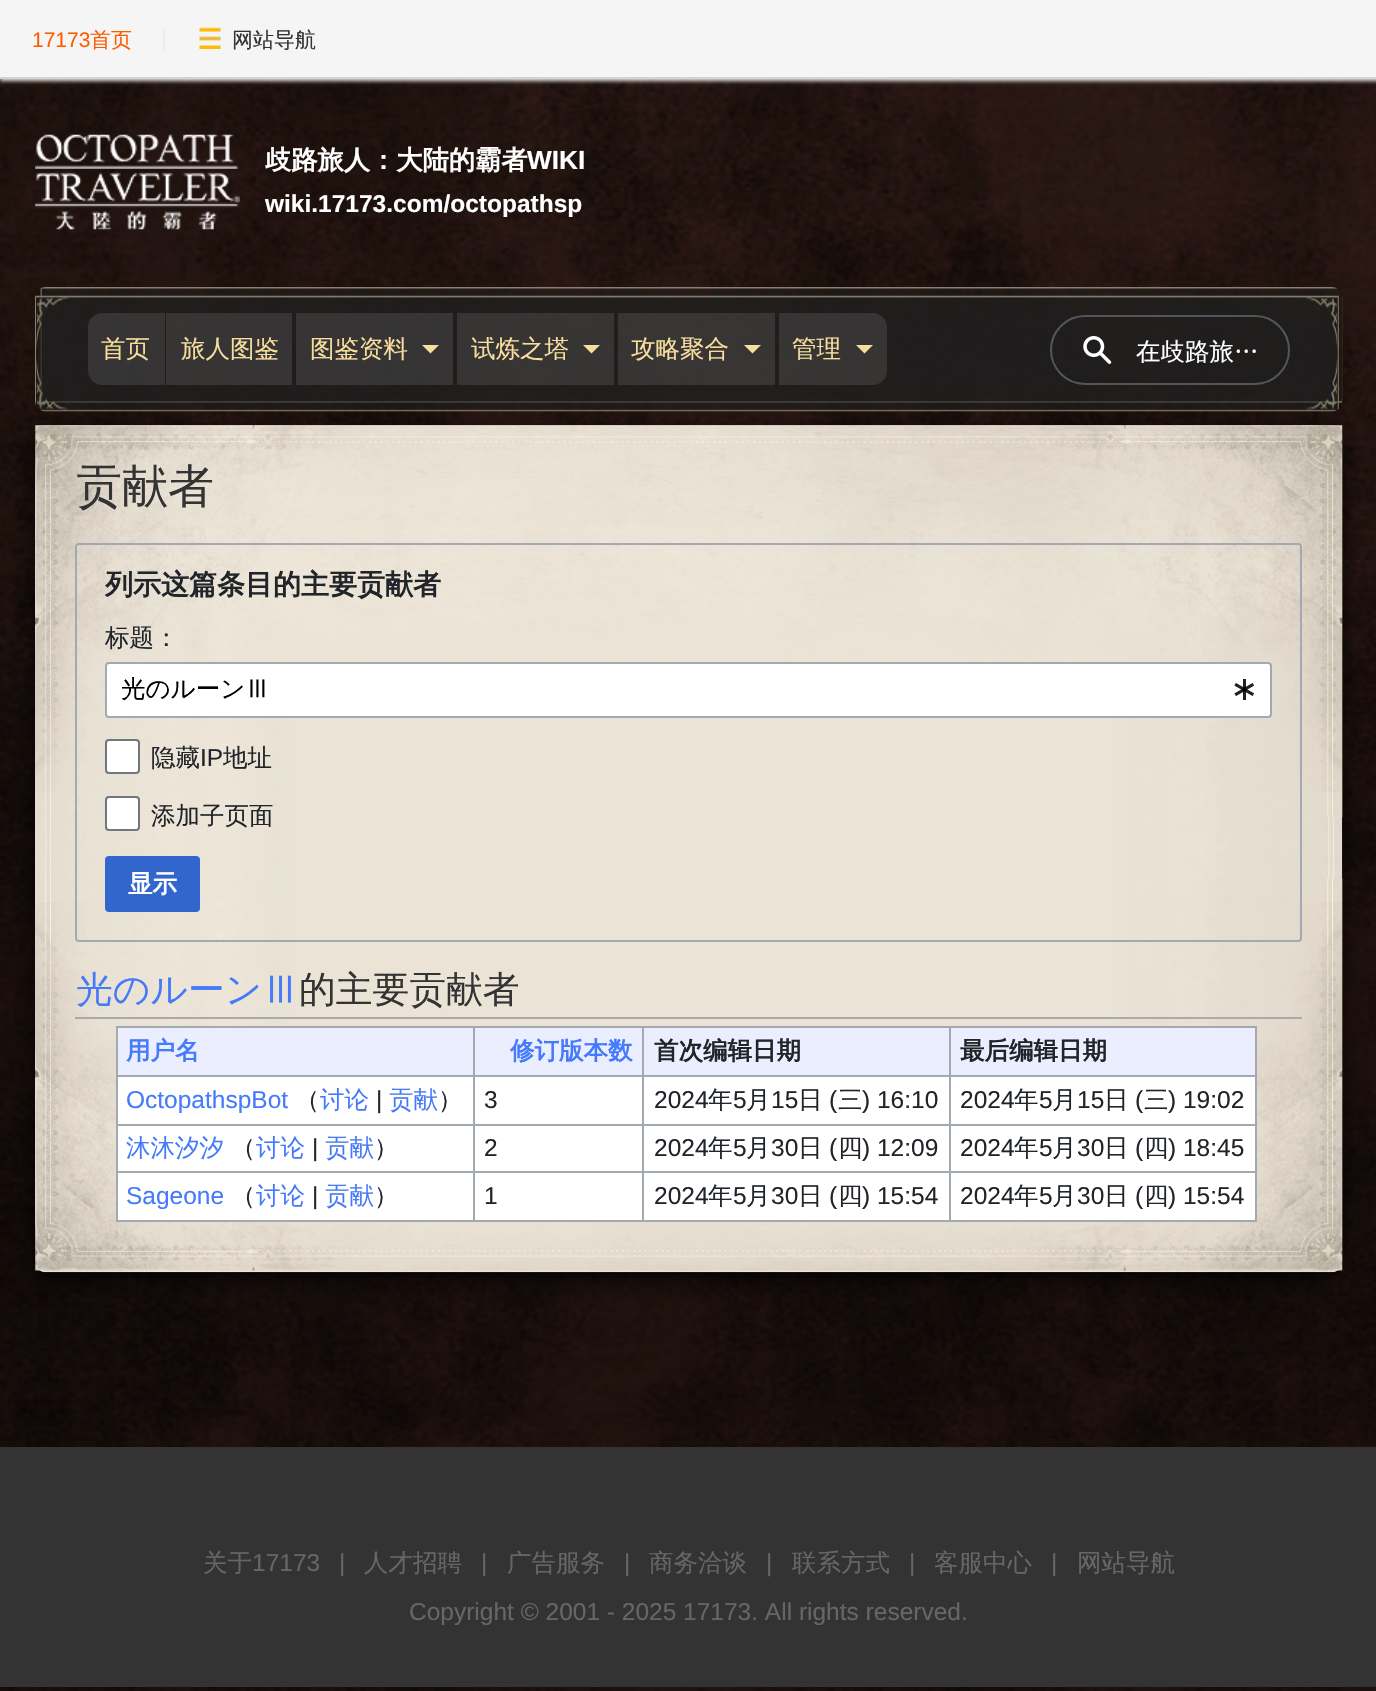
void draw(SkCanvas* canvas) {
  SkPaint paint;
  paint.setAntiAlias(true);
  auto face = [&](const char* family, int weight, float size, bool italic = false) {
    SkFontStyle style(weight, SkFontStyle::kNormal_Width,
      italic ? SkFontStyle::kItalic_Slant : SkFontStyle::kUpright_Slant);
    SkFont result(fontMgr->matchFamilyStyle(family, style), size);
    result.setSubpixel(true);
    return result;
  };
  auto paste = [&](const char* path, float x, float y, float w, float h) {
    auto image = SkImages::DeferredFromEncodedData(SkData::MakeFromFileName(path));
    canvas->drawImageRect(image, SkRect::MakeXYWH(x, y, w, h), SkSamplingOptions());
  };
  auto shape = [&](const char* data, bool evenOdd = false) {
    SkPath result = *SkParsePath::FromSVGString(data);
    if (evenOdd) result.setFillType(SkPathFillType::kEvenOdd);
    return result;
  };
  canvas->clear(0xffffffff);
  paste("img/1.png", 0, 79, 1376, 1612);
  paint.setColor(0xffe8e6e6);
  paint.setMaskFilter(SkMaskFilter::MakeBlur(kNormal_SkBlurStyle, 2));
  canvas->drawRect(SkRect::MakeXYWH(0, 2, 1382, 79), paint);
  paint.setMaskFilter(nullptr);
  paint.setColor(0xfff5f5f5);
  canvas->drawRect(SkRect::MakeXYWH(0, 0, 1376, 77), paint);
  paint.setColor(0xffd2d2d2);
  canvas->drawRect(SkRect::MakeXYWH(0, 77, 1376, 2), paint);
  paste("img/2.png", 163, 29, 2, 22);
  paste("img/3.png", 199, 27, 22, 22);
  paste("img/4.png", 35, 134, 205, 96);
  paste("img/5.png", 35, 287, 1308, 125);
  paint.setColor(0x1affffff);
  canvas->drawPath(shape("M102 313H165V385H102C94.5 385 88 378.5 88 371V327C88 319.5 94.5 313 102 313Z"), paint);
  canvas->drawRect(SkRect::MakeXYWH(166, 313, 126, 72), paint);
  canvas->drawRect(SkRect::MakeXYWH(296, 313, 157, 72), paint);
  paint.setColor(0xfff7de9f);
  canvas->drawPath(shape("M422 345H439L430.5 353.5Z"), paint);
  paint.setColor(0x1affffff);
  canvas->drawRect(SkRect::MakeXYWH(457, 313, 157, 72), paint);
  paint.setColor(0xfff7de9f);
  canvas->drawPath(shape("M583 345H600L591.5 353.5Z"), paint);
  paint.setColor(0x1affffff);
  canvas->drawRect(SkRect::MakeXYWH(618, 313, 157, 72), paint);
  paint.setColor(0xfff7de9f);
  canvas->drawPath(shape("M744 345H761L752.5 353.5Z"), paint);
  paint.setColor(0x1affffff);
  canvas->drawPath(shape("M779 313H873C880.5 313 887 319.5 887 327V371C887 378.5 880.5 385 873 385H779Z"), paint);
  paint.setColor(0xfff7de9f);
  canvas->drawPath(shape("M856 345H873L864.5 353.5Z"), paint);
  paint.setStroke(true);
  paint.setStrokeWidth(2);
  paint.setColor(0xff525659);
  canvas->drawRoundRect(SkRect::MakeXYWH(1051, 316, 238, 68), 34, 34, paint);
  paste("img/6.png", 1083, 336, 29, 28);
  paint.setStroke(false);
  paint.setColor(0xcc000000);
  paint.setMaskFilter(SkMaskFilter::MakeBlur(kNormal_SkBlurStyle, 3.5f));
  canvas->drawRoundRect(SkRect::MakeXYWH(39, 432, 1300, 840), 7, 7, paint);
  paint.setMaskFilter(nullptr);
  paint.setMaskFilter(SkMaskFilter::MakeBlur(kNormal_SkBlurStyle, 12));
  canvas->drawRoundRect(SkRect::MakeXYWH(37, 434, 1304, 844), 9, 9, paint);
  paint.setMaskFilter(nullptr);
  paste("img/7.png", 35, 425, 1308, 848);
  paste("img/8.png", 35, 425, 1308, 846);
  paint.setStroke(true);
  paint.setColor(0xffa2a9b1);
  canvas->drawRoundRect(SkRect::MakeXYWH(76, 544, 1225, 397), 3, 3, paint);
  paint.setStroke(false);
  paint.setColor(0xffffffff);
  canvas->drawRoundRect(SkRect::MakeXYWH(106, 663, 1165, 54), 3, 3, paint);
  paint.setStroke(true);
  paint.setColor(0xffa2a9b1);
  canvas->drawRoundRect(SkRect::MakeXYWH(106, 663, 1165, 54), 3, 3, paint);
  paste("img/9.png", 1234, 679, 20, 21);
  paint.setStroke(false);
  paint.setColor(0xffffffff);
  canvas->drawRoundRect(SkRect::MakeXYWH(106, 740, 33, 33), 3, 3, paint);
  paint.setStroke(true);
  paint.setColor(0xff72777d);
  canvas->drawRoundRect(SkRect::MakeXYWH(106, 740, 33, 33), 3, 3, paint);
  paint.setStroke(false);
  paint.setColor(0xffffffff);
  canvas->drawRoundRect(SkRect::MakeXYWH(106, 797, 33, 33), 3, 3, paint);
  paint.setStroke(true);
  paint.setColor(0xff72777d);
  canvas->drawRoundRect(SkRect::MakeXYWH(106, 797, 33, 33), 3, 3, paint);
  paint.setStroke(false);
  paint.setColor(0xff3366cc);
  canvas->drawRoundRect(SkRect::MakeXYWH(106, 857, 93, 54), 3, 3, paint);
  paint.setStroke(true);
  canvas->drawRoundRect(SkRect::MakeXYWH(106, 857, 93, 54), 3, 3, paint);
  paint.setStroke(false);
  {
    const struct { float x, y, w, h; SkColor color; } items[] = {
      {75, 1017, 1227, 2, 0xffaaaaaa},
      {116, 1026, 1141, 2, 0xffa2a9b1},
      {1255, 1026, 2, 196, 0xffa2a9b1},
      {116, 1220, 1141, 2, 0xffa2a9b1},
      {116, 1026, 2, 196, 0xffa2a9b1},
      {118, 1028, 355, 47, 0xffeaeeff},
      {475, 1028, 167, 47, 0xffeaeeff},
      {949, 1075, 308, 2, 0xffa2a9b1},
      {949, 1124, 308, 2, 0xffa2a9b1},
      {949, 1171, 308, 2, 0xffa2a9b1},
      {949, 1171, 2, 51, 0xffa2a9b1},
      {642, 1171, 308, 2, 0xffa2a9b1},
      {949, 1124, 2, 49, 0xffa2a9b1},
      {642, 1124, 308, 2, 0xffa2a9b1},
      {949, 1075, 2, 50, 0xffa2a9b1},
      {642, 1075, 308, 2, 0xffa2a9b1},
      {642, 1171, 2, 51, 0xffa2a9b1},
      {473, 1171, 171, 2, 0xffa2a9b1},
      {642, 1124, 2, 49, 0xffa2a9b1},
      {473, 1124, 171, 2, 0xffa2a9b1},
      {642, 1075, 2, 50, 0xffa2a9b1},
      {473, 1075, 171, 2, 0xffa2a9b1},
      {473, 1171, 2, 51, 0xffa2a9b1},
      {116, 1171, 358, 2, 0xffa2a9b1},
      {473, 1124, 2, 49, 0xffa2a9b1},
      {116, 1124, 358, 2, 0xffa2a9b1},
      {473, 1075, 2, 50, 0xffa2a9b1},
      {116, 1075, 358, 2, 0xffa2a9b1},
      {473, 1026, 2, 50, 0xffa2a9b1},
      {644, 1028, 305, 47, 0xffeaeeff},
      {642, 1026, 2, 50, 0xffa2a9b1},
      {951, 1028, 304, 47, 0xffeaeeff},
      {949, 1026, 2, 50, 0xffa2a9b1},
      {118, 1077, 355, 47, 0xffffffff},
      {475, 1077, 167, 47, 0xffffffff},
      {644, 1077, 305, 47, 0xffffffff},
      {951, 1077, 304, 47, 0xffffffff},
      {118, 1126, 355, 45, 0xffffffff},
      {475, 1126, 167, 45, 0xffffffff},
      {644, 1126, 305, 45, 0xffffffff},
      {951, 1126, 304, 45, 0xffffffff},
      {118, 1173, 355, 47, 0xffffffff},
      {475, 1173, 167, 47, 0xffffffff},
      {644, 1173, 305, 47, 0xffffffff},
      {951, 1173, 304, 47, 0xffffffff},
      {0, 1447, 1376, 240, 0xff333333},
    };
    for (auto [x, y, w, h, color] : items) {
      paint.setColor(color);
      canvas->drawRect(SkRect::MakeXYWH(x, y, w, h), paint);
    }
  }
  auto f0 = face("Liberation Sans", 400, 21);
  paint.setColor(0xffff5c00);
  canvas->drawString("17173", 32, 47, f0, paint);
  auto f1 = face("WenQuanYi Zen Hei", 500, 21);
  canvas->drawString("首页", 90, 47, f1, paint);
  paint.setColor(0xff333333);
  canvas->drawString("网站导航", 232, 47, f1, paint);
  auto f2 = face("WenQuanYi Zen Hei", 700, 26.25f);
  paint.setColor(0xffffffff);
  canvas->drawString("歧路旅人：大陆的霸者", 265, 169, f2, paint);
  auto f3 = face("Liberation Sans", 700, 26.25f);
  canvas->drawString("WIKI", 527, 169, f3, paint);
  auto f4 = face("Liberation Sans", 700, 24.5f);
  canvas->drawString("wiki.17173.com/octopathsp", 265, 212, f4, paint);
  auto f5 = face("WenQuanYi Zen Hei", 500, 24.5f);
  paint.setColor(0xfff7de9f);
  {
    const struct { const char* s; float x, y; } items[] = {
      {"首页", 101, 357},
      {"旅人图鉴", 181, 357},
      {"图鉴资料", 310, 357},
      {"试炼之塔", 471, 357},
      {"攻略聚合", 631, 357},
      {"管理", 792, 357},
    };
    for (auto [s, x, y] : items) {
      canvas->drawString(s, x, y, f5, paint);
    }
  }
  paint.setColor(0xffffffff);
  canvas->drawString("在歧路旅…", 1136, 360, f5, paint);
  auto f6 = face("WenQuanYi Zen Hei", 500, 46);
  paint.setColor(0xff333333);
  canvas->drawString("贡献者", 76, 502, f6, paint);
  auto f7 = face("WenQuanYi Zen Hei", 700, 28);
  paint.setColor(0xff212529);
  canvas->drawString("列示这篇条目的主要贡献者", 105, 594, f7, paint);
  canvas->drawString("标题：", 105, 646, f5, paint);
  paint.setColor(0xff000000);
  canvas->drawString("光のルーンⅢ", 121, 697, f5, paint);
  paint.setColor(0xff212529);
  canvas->drawString("隐藏", 151, 766, f5, paint);
  auto f8 = face("Liberation Sans", 400, 24.5f);
  canvas->drawString("IP", 200, 766, f8, paint);
  canvas->drawString("地址", 223, 766, f5, paint);
  canvas->drawString("添加子页面", 151, 824, f5, paint);
  auto f9 = face("WenQuanYi Zen Hei", 700, 24.5f);
  paint.setColor(0xffffffff);
  canvas->drawString("显示", 128, 892, f9, paint);
  auto f10 = face("WenQuanYi Zen Hei", 500, 36.75f);
  paint.setColor(0xff457afb);
  canvas->drawString("光のルーンⅢ", 76, 1002, f10, paint);
  paint.setColor(0xff333333);
  canvas->drawString("的主要贡献者", 299, 1002, f10, paint);
  paint.setColor(0xff457afb);
  canvas->drawString("用户名", 126, 1059, f9, paint);
  canvas->drawString("修订版本数", 510, 1059, f9, paint);
  paint.setColor(0xff212529);
  canvas->drawString("首次编辑日期", 654, 1059, f9, paint);
  canvas->drawString("最后编辑日期", 960, 1059, f9, paint);
  paint.setColor(0xff457afb);
  canvas->drawString("OctopathspBot", 126, 1108, f8, paint);
  paint.setColor(0xff212529);
  canvas->drawString("（", 295, 1108, f5, paint);
  paint.setColor(0xff457afb);
  canvas->drawString("讨论", 320, 1108, f5, paint);
  paint.setColor(0xff212529);
  canvas->drawString("|", 376, 1108, f8, paint);
  paint.setColor(0xff457afb);
  canvas->drawString("贡献", 389, 1108, f5, paint);
  paint.setColor(0xff212529);
  canvas->drawString("）", 438, 1108, f5, paint);
  canvas->drawString("3", 484, 1108, f8, paint);
  canvas->drawString("2024", 654, 1108, f8, paint);
  canvas->drawString("年", 708, 1108, f5, paint);
  canvas->drawString("5", 733, 1108, f8, paint);
  canvas->drawString("月", 746, 1108, f5, paint);
  canvas->drawString("15", 771, 1108, f8, paint);
  canvas->drawString("日", 798, 1108, f5, paint);
  canvas->drawString("(", 829, 1108, f8, paint);
  canvas->drawString("三", 838, 1108, f5, paint);
  canvas->drawString(") 16:10", 862, 1108, f8, paint);
  canvas->drawString("2024", 960, 1108, f8, paint);
  canvas->drawString("年", 1014, 1108, f5, paint);
  canvas->drawString("5", 1039, 1108, f8, paint);
  canvas->drawString("月", 1052, 1108, f5, paint);
  canvas->drawString("15", 1077, 1108, f8, paint);
  canvas->drawString("日", 1104, 1108, f5, paint);
  canvas->drawString("(", 1135, 1108, f8, paint);
  canvas->drawString("三", 1144, 1108, f5, paint);
  canvas->drawString(") 19:02", 1168, 1108, f8, paint);
  paint.setColor(0xff457afb);
  canvas->drawString("沐沐汐汐", 126, 1156, f5, paint);
  paint.setColor(0xff212529);
  canvas->drawString("（", 231, 1156, f5, paint);
  paint.setColor(0xff457afb);
  canvas->drawString("讨论", 256, 1156, f5, paint);
  paint.setColor(0xff212529);
  canvas->drawString("|", 312, 1156, f8, paint);
  paint.setColor(0xff457afb);
  canvas->drawString("贡献", 325, 1156, f5, paint);
  paint.setColor(0xff212529);
  canvas->drawString("）", 374, 1156, f5, paint);
  canvas->drawString("2", 484, 1156, f8, paint);
  canvas->drawString("2024", 654, 1156, f8, paint);
  canvas->drawString("年", 708, 1156, f5, paint);
  canvas->drawString("5", 733, 1156, f8, paint);
  canvas->drawString("月", 746, 1156, f5, paint);
  canvas->drawString("30", 771, 1156, f8, paint);
  canvas->drawString("日", 798, 1156, f5, paint);
  canvas->drawString("(", 829, 1156, f8, paint);
  canvas->drawString("四", 838, 1156, f5, paint);
  canvas->drawString(") 12:09", 862, 1156, f8, paint);
  canvas->drawString("2024", 960, 1156, f8, paint);
  canvas->drawString("年", 1014, 1156, f5, paint);
  canvas->drawString("5", 1039, 1156, f8, paint);
  canvas->drawString("月", 1052, 1156, f5, paint);
  canvas->drawString("30", 1077, 1156, f8, paint);
  canvas->drawString("日", 1104, 1156, f5, paint);
  canvas->drawString("(", 1135, 1156, f8, paint);
  canvas->drawString("四", 1144, 1156, f5, paint);
  canvas->drawString(") 18:45", 1168, 1156, f8, paint);
  paint.setColor(0xff457afb);
  canvas->drawString("Sageone", 126, 1204, f8, paint);
  paint.setColor(0xff212529);
  canvas->drawString("（", 231, 1204, f5, paint);
  paint.setColor(0xff457afb);
  canvas->drawString("讨论", 256, 1204, f5, paint);
  paint.setColor(0xff212529);
  canvas->drawString("|", 312, 1204, f8, paint);
  paint.setColor(0xff457afb);
  canvas->drawString("贡献", 325, 1204, f5, paint);
  paint.setColor(0xff212529);
  canvas->drawString("）", 374, 1204, f5, paint);
  canvas->drawString("1", 484, 1204, f8, paint);
  canvas->drawString("2024", 654, 1204, f8, paint);
  canvas->drawString("年", 708, 1204, f5, paint);
  canvas->drawString("5", 733, 1204, f8, paint);
  canvas->drawString("月", 746, 1204, f5, paint);
  canvas->drawString("30", 771, 1204, f8, paint);
  canvas->drawString("日", 798, 1204, f5, paint);
  canvas->drawString("(", 829, 1204, f8, paint);
  canvas->drawString("四", 838, 1204, f5, paint);
  canvas->drawString(") 15:54", 862, 1204, f8, paint);
  canvas->drawString("2024", 960, 1204, f8, paint);
  canvas->drawString("年", 1014, 1204, f5, paint);
  canvas->drawString("5", 1039, 1204, f8, paint);
  canvas->drawString("月", 1052, 1204, f5, paint);
  canvas->drawString("30", 1077, 1204, f8, paint);
  canvas->drawString("日", 1104, 1204, f5, paint);
  canvas->drawString("(", 1135, 1204, f8, paint);
  canvas->drawString("四", 1144, 1204, f5, paint);
  canvas->drawString(") 15:54", 1168, 1204, f8, paint);
  paint.setColor(0xff666666);
  canvas->drawString("关于", 203, 1571, f5, paint);
  canvas->drawString("17173", 252, 1571, f8, paint);
  canvas->drawString("|", 339, 1571, f8, paint);
  canvas->drawString("人才招聘", 364, 1571, f5, paint);
  canvas->drawString("|", 481, 1571, f8, paint);
  canvas->drawString("广告服务", 507, 1571, f5, paint);
  canvas->drawString("|", 624, 1571, f8, paint);
  canvas->drawString("商务洽谈", 649, 1571, f5, paint);
  canvas->drawString("|", 766, 1571, f8, paint);
  canvas->drawString("联系方式", 792, 1571, f5, paint);
  canvas->drawString("|", 909, 1571, f8, paint);
  canvas->drawString("客服中心", 934, 1571, f5, paint);
  canvas->drawString("|", 1051, 1571, f8, paint);
  canvas->drawString("网站导航", 1077, 1571, f5, paint);
  canvas->drawString("Copyright © 2001 - 2025 17173. All rights reserved.", 409, 1620, f8, paint);
}
